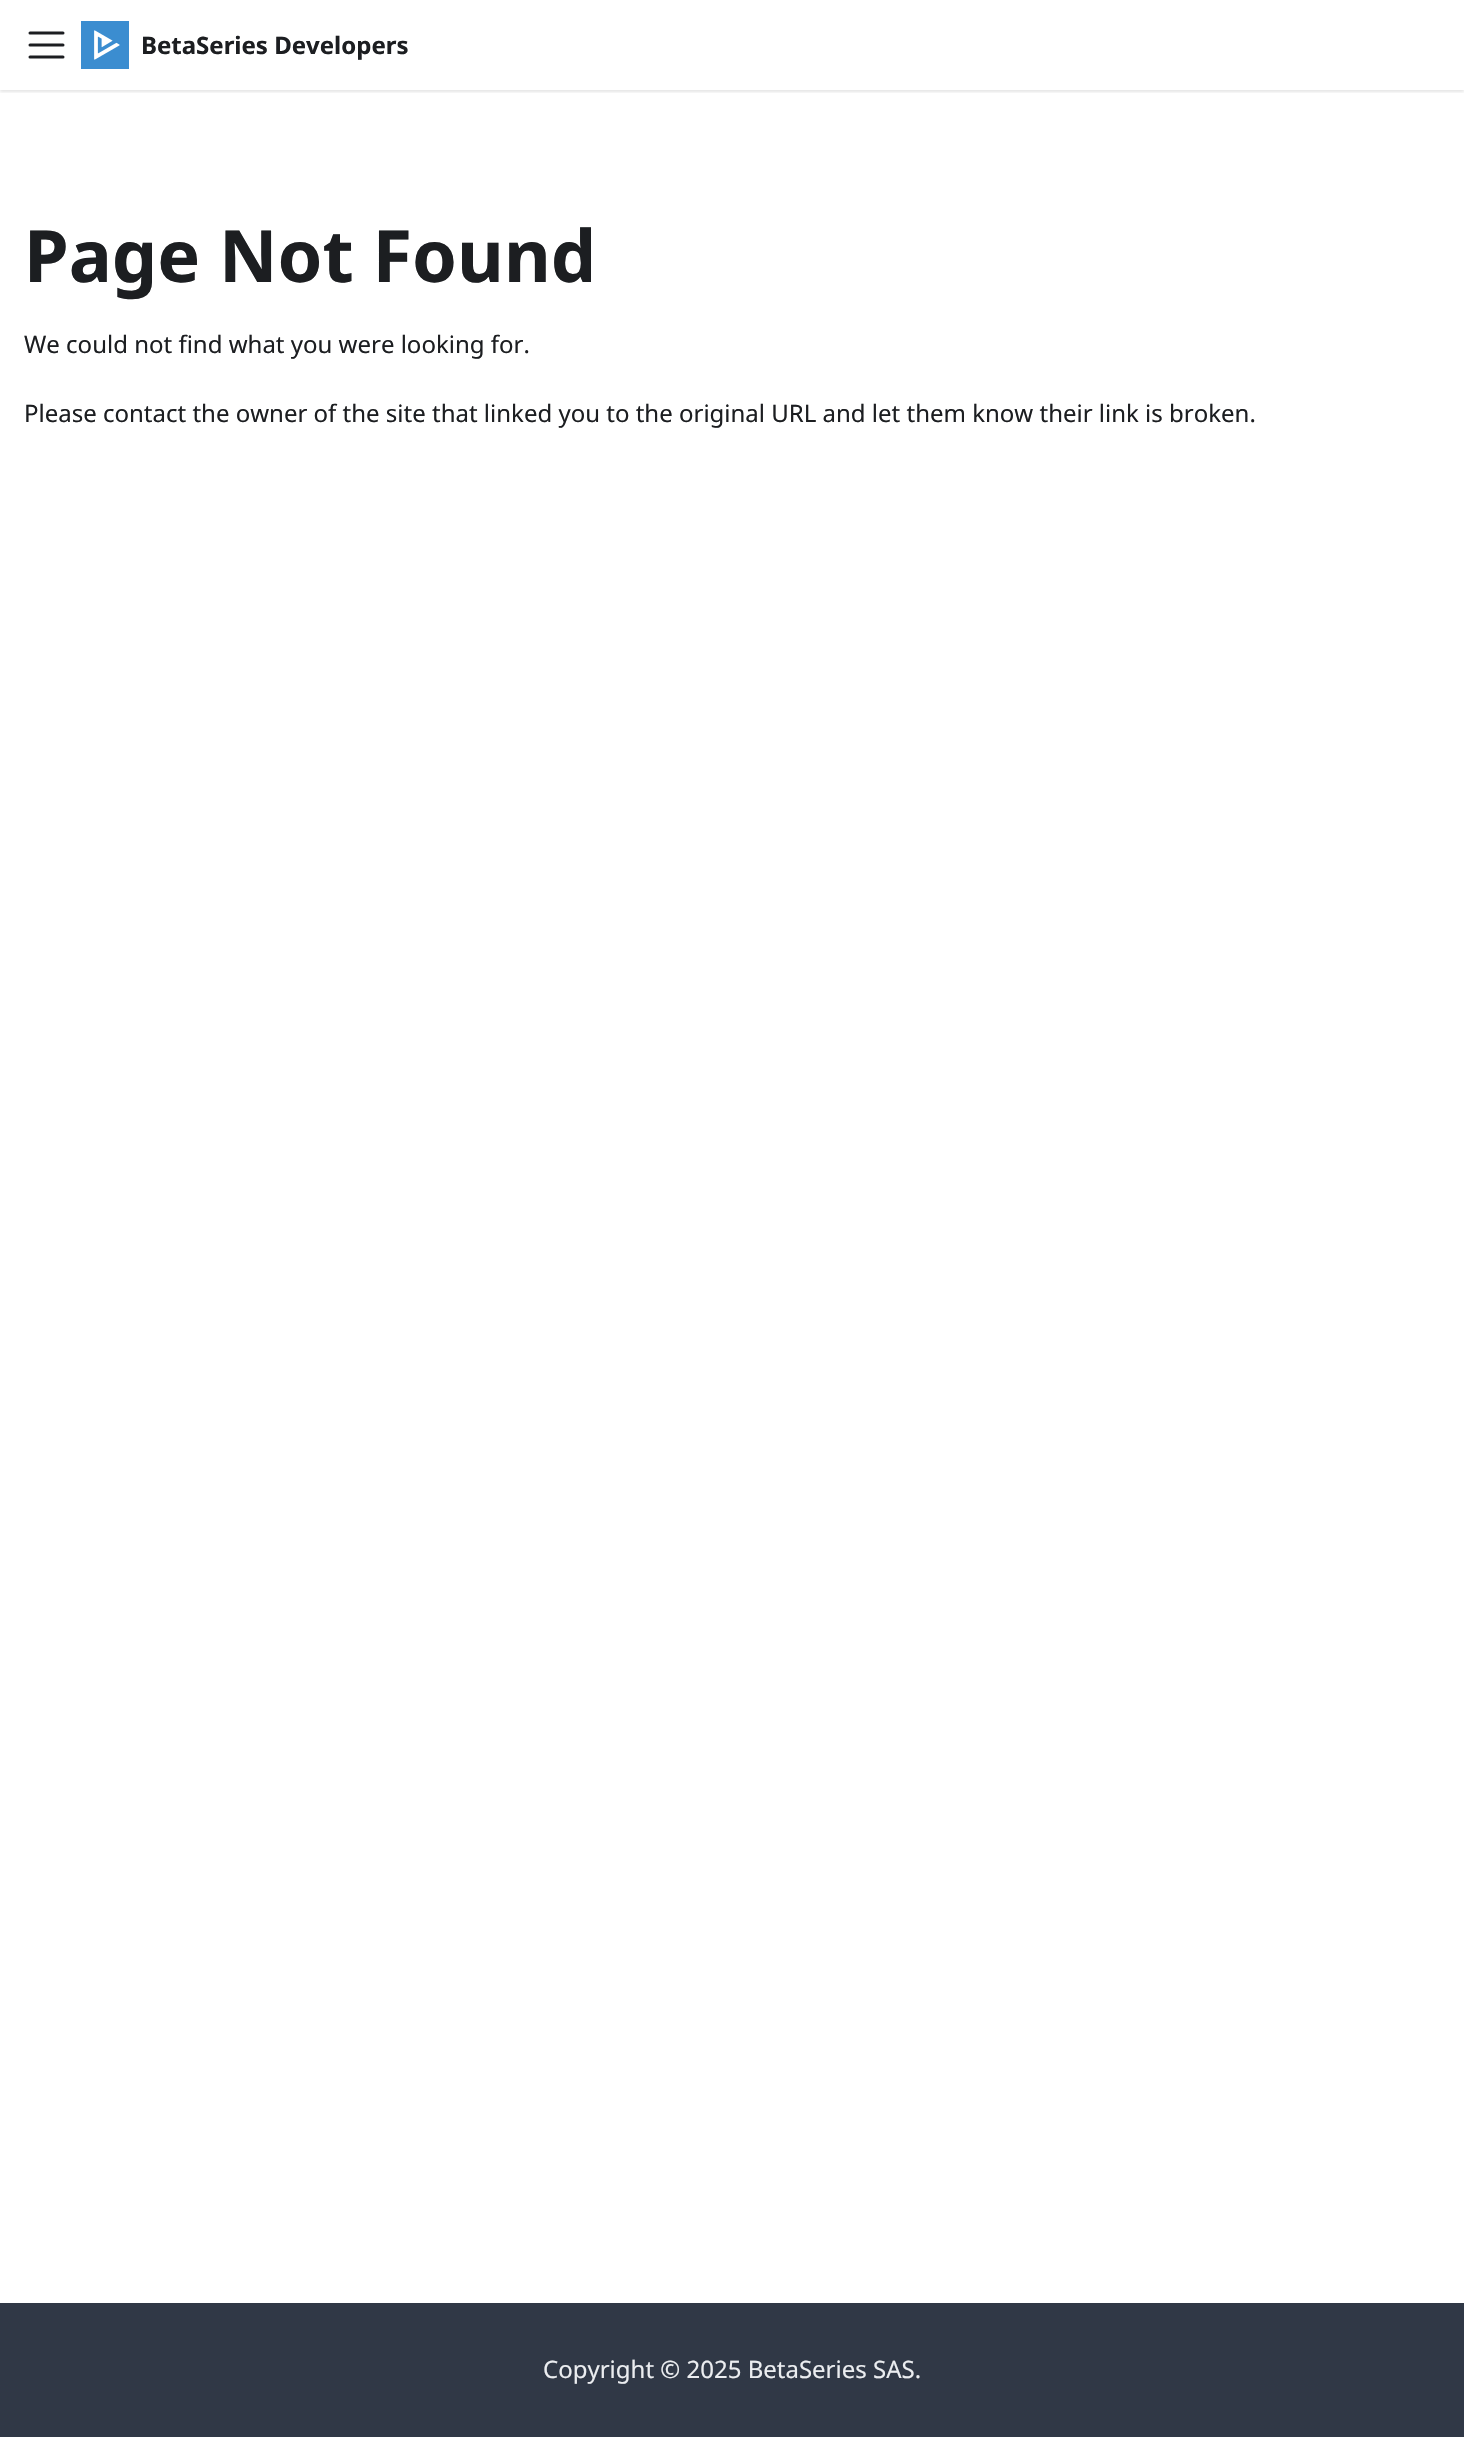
void draw(SkCanvas* canvas) {
  SkPaint paint;
  paint.setAntiAlias(true);
  auto face = [&](const char* family, int weight, float size, bool italic = false) {
    SkFontStyle style(weight, SkFontStyle::kNormal_Width,
      italic ? SkFontStyle::kItalic_Slant : SkFontStyle::kUpright_Slant);
    SkFont result(fontMgr->matchFamilyStyle(family, style), size);
    result.setSubpixel(true);
    return result;
  };
  auto paste = [&](const char* path, float x, float y, float w, float h) {
    auto image = SkImages::DeferredFromEncodedData(SkData::MakeFromFileName(path));
    canvas->drawImageRect(image, SkRect::MakeXYWH(x, y, w, h), SkSamplingOptions());
  };
  auto shape = [&](const char* data, bool evenOdd = false) {
    SkPath result = *SkParsePath::FromSVGString(data);
    if (evenOdd) result.setFillType(SkPathFillType::kEvenOdd);
    return result;
  };
  canvas->clear(0xffffffff);
  canvas->save();
  canvas->clipRect(SkRect::MakeXYWH(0, 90, 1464, 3));
  paint.setColor(0x1a000000);
  paint.setMaskFilter(SkMaskFilter::MakeBlur(kNormal_SkBlurStyle, 1.5f));
  canvas->drawRect(SkRect::MakeXYWH(0, 2, 1464, 90), paint);
  paint.setMaskFilter(nullptr);
  canvas->restore();
  paint.setStroke(true);
  paint.setStrokeWidth(3);
  paint.setStrokeCap(SkPaint::kRound_Cap);
  paint.setColor(0xff1c1e21);
  canvas->drawPath(shape("M30 33H63M30 45H63M30 57H63"), paint);
  paste("img/1.png", 81, 21, 48, 48);
  paint.setStroke(false);
  paint.setColor(0xff303846);
  canvas->drawRect(SkRect::MakeXYWH(0, 2303, 1464, 134), paint);
  auto f0 = face("Noto Sans", 700, 24);
  paint.setColor(0xff1c1e21);
  canvas->drawString("BetaSeries Developers", 141, 54, f0, paint);
  auto f1 = face("Noto Sans", 700, 72);
  canvas->drawString("Page Not Found", 24, 282, f1, paint);
  auto f2 = face("Noto Sans", 400, 24);
  canvas->drawString("We could not find what you were looking for.", 24, 353, f2, paint);
  canvas->drawString("Please contact the owner of the site that linked you to the original URL and let them know their link is broken.", 24, 422, f2, paint);
  paint.setColor(0xffebedf0);
  canvas->drawString("Copyright © 2025 BetaSeries SAS.", 543, 2378, f2, paint);
}
